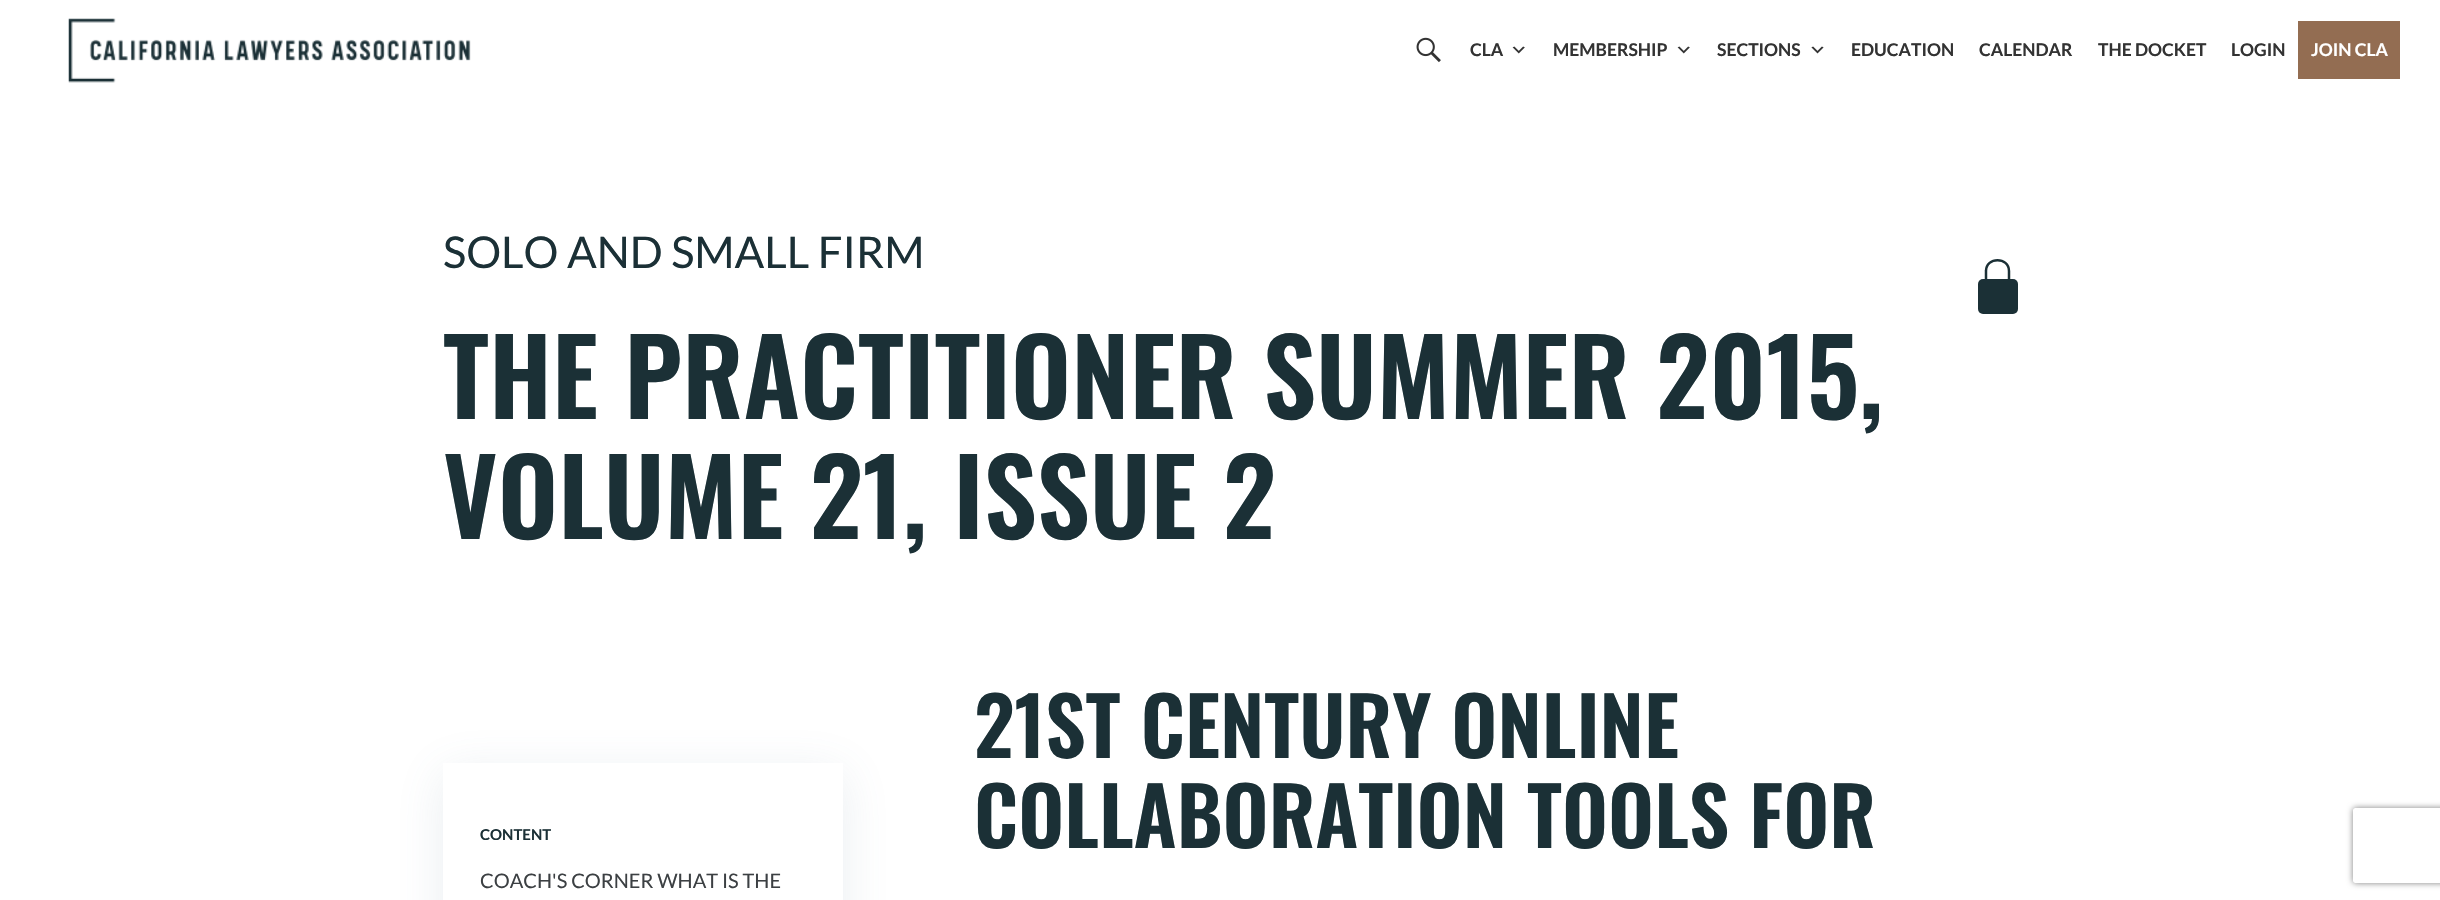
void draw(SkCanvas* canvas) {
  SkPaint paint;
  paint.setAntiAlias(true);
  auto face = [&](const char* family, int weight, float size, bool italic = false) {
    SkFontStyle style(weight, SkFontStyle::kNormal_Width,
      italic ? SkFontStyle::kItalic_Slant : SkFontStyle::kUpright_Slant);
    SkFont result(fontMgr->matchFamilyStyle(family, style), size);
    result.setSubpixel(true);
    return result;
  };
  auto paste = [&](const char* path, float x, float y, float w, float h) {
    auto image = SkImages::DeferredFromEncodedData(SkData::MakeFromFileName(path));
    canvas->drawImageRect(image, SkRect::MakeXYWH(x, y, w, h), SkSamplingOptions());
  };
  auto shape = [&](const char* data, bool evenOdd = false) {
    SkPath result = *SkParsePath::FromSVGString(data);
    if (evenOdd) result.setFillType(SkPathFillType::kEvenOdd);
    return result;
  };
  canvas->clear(0xffffffff);
  paste("img/1.png", 68, 18, 403, 65);
  paste("img/2.png", 1416, 37, 25, 26);
  paste("img/3.png", 1512, 46, 13, 8);
  paste("img/3.png", 1677, 46, 13, 8);
  paste("img/4.png", 1811, 46, 13, 8);
  paint.setColor(0xff936d52);
  canvas->drawRect(SkRect::MakeXYWH(2298, 21, 102, 58), paint);
  paint.setColor(0xff1b3036);
  canvas->drawRoundRect(SkRect::MakeXYWH(1978, 279, 40, 35), 5, 5, paint);
  paint.setStroke(true);
  paint.setStrokeWidth(2.5f);
  canvas->drawPath(shape("M1986 296V270M2009 297.5V271M2009 271C2009 256.5 1986 256.5 1986 271"), paint);
  paint.setStroke(false);
  paint.setColor(0x215c7a96);
  paint.setMaskFilter(SkMaskFilter::MakeBlur(kNormal_SkBlurStyle, 22.5f));
  canvas->drawRect(SkRect::MakeXYWH(443, 773, 400, 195), paint);
  paint.setMaskFilter(nullptr);
  paint.setColor(0xffffffff);
  canvas->drawRect(SkRect::MakeXYWH(443, 763, 400, 137), paint);
  canvas->save();
  canvas->clipPath(shape("M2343 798H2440V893H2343ZM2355.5 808H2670.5C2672 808 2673 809 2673 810.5V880.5C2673 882 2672 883 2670.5 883H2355.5C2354 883 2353 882 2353 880.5V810.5C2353 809 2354 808 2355.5 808Z", true), true);
  paint.setColor(0xff808080);
  paint.setMaskFilter(SkMaskFilter::MakeBlur(kNormal_SkBlurStyle, 3));
  canvas->drawRoundRect(SkRect::MakeXYWH(2353, 808, 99, 75), 2.5f, 2.5f, paint);
  paint.setMaskFilter(nullptr);
  canvas->restore();
  auto f0 = face("Lato", 700, 17.5f);
  paint.setColor(0xff333333);
  {
    const struct { const char* s; float x, y; } items[] = {
      {"CLA", 1470, 56},
      {"MEMBERSHIP", 1553, 56},
      {"SECTIONS", 1717, 56},
      {"EDUCATION", 1851, 56},
      {"CALENDAR", 1979, 56},
      {"THE DOCKET", 2098, 56},
      {"LOGIN", 2231, 56},
    };
    for (auto [s, x, y] : items) {
      canvas->drawString(s, x, y, f0, paint);
    }
  }
  paint.setColor(0xffffffff);
  canvas->drawString("JOIN CLA", 2311, 56, f0, paint);
  auto f1 = face("Lato", 400, 43.75f);
  paint.setColor(0xff1b3036);
  canvas->drawString("SOLO AND SMALL FIRM", 443, 268, f1, paint);
  auto f2 = face("Oswald", 600, 105);
  canvas->drawString("THE PRACTITIONER SUMMER 2015,", 443, 419, f2, paint);
  canvas->drawString("VOLUME 21, ISSUE 2", 443, 539, f2, paint);
  auto f3 = face("Oswald", 600, 80);
  canvas->drawString("21ST CENTURY ONLINE", 974, 758, f3, paint);
  canvas->drawString("COLLABORATION TOOLS FOR", 974, 848, f3, paint);
  auto f4 = face("Lato", 700, 15);
  canvas->drawString("CONTENT", 480, 840, f4, paint);
  auto f5 = face("Lato", 400, 20);
  paint.setColor(0xff3c4043);
  canvas->drawString("COACH'S CORNER WHAT IS THE", 480, 888, f5, paint);
}
